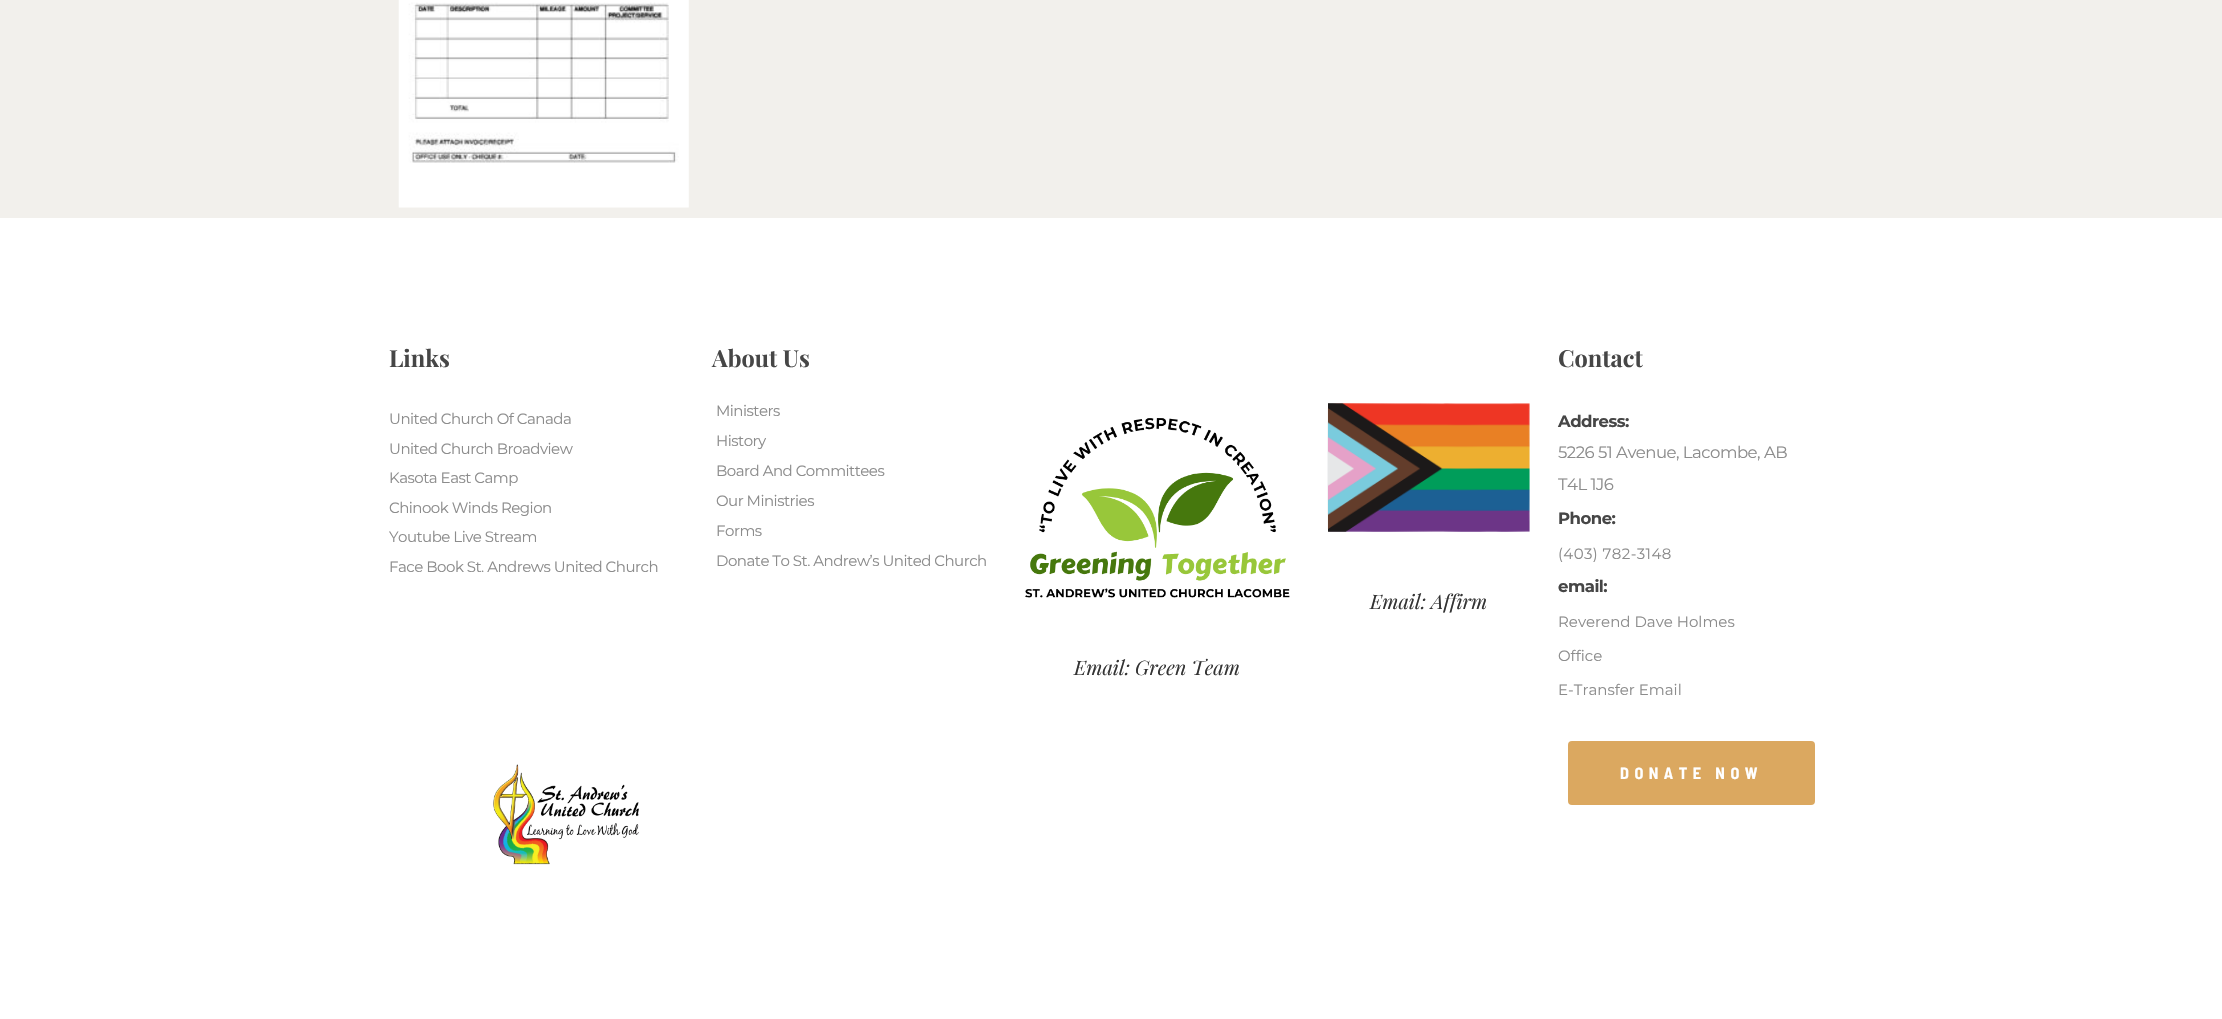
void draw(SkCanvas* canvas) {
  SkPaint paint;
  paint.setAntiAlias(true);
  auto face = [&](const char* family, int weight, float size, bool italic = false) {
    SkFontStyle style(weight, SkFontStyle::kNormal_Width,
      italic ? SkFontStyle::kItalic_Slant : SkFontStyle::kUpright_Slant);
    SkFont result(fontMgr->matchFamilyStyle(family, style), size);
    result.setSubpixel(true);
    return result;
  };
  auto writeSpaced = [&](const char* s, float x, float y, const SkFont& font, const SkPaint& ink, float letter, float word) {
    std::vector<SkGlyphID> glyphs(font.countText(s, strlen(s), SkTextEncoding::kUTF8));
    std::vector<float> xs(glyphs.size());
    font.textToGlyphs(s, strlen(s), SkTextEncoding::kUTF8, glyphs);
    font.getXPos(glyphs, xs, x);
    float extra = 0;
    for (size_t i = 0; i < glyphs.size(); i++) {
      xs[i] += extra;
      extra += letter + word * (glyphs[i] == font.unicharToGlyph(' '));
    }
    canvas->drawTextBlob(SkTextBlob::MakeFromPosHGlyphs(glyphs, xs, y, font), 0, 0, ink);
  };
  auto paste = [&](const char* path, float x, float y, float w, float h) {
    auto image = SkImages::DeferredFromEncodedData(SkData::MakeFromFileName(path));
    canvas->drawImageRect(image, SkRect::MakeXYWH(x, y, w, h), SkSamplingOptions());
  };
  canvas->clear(0xfff2f0ec);
  paste("img/1.png", 398, 0, 291, 208);
  paint.setColor(0xffffffff);
  canvas->drawRect(SkRect::MakeXYWH(0, 218, 2222, 801), paint);
  paste("img/2.png", 1327, 403, 203, 129);
  paste("img/3.png", 1025, 418, 265, 180);
  paste("img/4.png", 493, 764, 146, 101);
  paint.setColor(0xffdba860);
  canvas->drawRoundRect(SkRect::MakeXYWH(1568, 741, 247, 64), 4, 4, paint);
  auto f0 = face("Playfair Display", 700, 23.5f);
  paint.setColor(0xff464646);
  canvas->drawString("Links", 389, 367, f0, paint);
  auto f1 = face("Montserrat", 400, 15);
  paint.setColor(0xff8c8c8c);
  {
    const struct { const char* s; float x, y; } items[] = {
      {"United Church Of Canada", 389, 424},
      {"United Church Broadview", 389, 454},
      {"Kasota East Camp", 389, 483},
      {"Chinook Winds Region", 389, 513},
      {"Youtube Live Stream", 389, 542},
      {"Face Book St. Andrews United Church", 389, 572},
    };
    for (auto [s, x, y] : items) {
      writeSpaced(s, x, y, f1, paint, -0.5f, 0);
    }
  }
  paint.setColor(0xff464646);
  canvas->drawString("About Us", 712, 367, f0, paint);
  paint.setColor(0xff8c8c8c);
  {
    const struct { const char* s; float x, y; } items[] = {
      {"Ministers", 716, 416},
      {"History", 716, 446},
      {"Board And Committees", 716, 476},
      {"Our Ministries", 716, 506},
      {"Forms", 716, 536},
      {"Donate To St. Andrew’s United Church", 716, 566},
    };
    for (auto [s, x, y] : items) {
      writeSpaced(s, x, y, f1, paint, -0.5f, 0);
    }
  }
  auto f2 = face("Playfair Display", 400, 20, true);
  paint.setColor(0xff333333);
  canvas->drawString("Email: Affirm", 1370, 609, f2, paint);
  paint.setColor(0xff464646);
  canvas->drawString("Contact", 1558, 367, f0, paint);
  auto f3 = face("Montserrat", 700, 16.5f);
  writeSpaced("Address:", 1558, 427, f3, paint, -0.5f, 0);
  auto f4 = face("Montserrat", 400, 16.5f);
  paint.setColor(0xff8c8c8c);
  writeSpaced("5226 51 Avenue, Lacombe, AB", 1558, 458, f4, paint, -0.5f, 0);
  writeSpaced("T4L 1J6", 1558, 490, f4, paint, -0.5f, 0);
  paint.setColor(0xff464646);
  writeSpaced("Phone:", 1558, 524, f3, paint, -0.5f, 0);
  paint.setColor(0xff8c8c8c);
  writeSpaced("(403) 782-3148", 1558, 559, f1, paint, 0.4f, 0);
  paint.setColor(0xff464646);
  writeSpaced("email:", 1558, 592, f3, paint, -0.5f, 0);
  paint.setColor(0xff8c8c8c);
  {
    const struct { const char* s; float x, y; } items[] = {
      {"Reverend Dave Holmes", 1558, 627},
      {"Office", 1558, 661},
      {"E-Transfer Email", 1558, 695},
    };
    for (auto [s, x, y] : items) {
      canvas->drawString(s, x, y, f1, paint);
    }
  }
  paint.setColor(0xff333333);
  canvas->drawString("Email: Green Team", 1074, 675, f2, paint);
  auto f5 = face("Barlow Semi Condensed", 700, 16.25f);
  paint.setColor(0xffffffff);
  writeSpaced("DONATE NOW", 1620, 779, f5, paint, 5.5f, 0);
}
